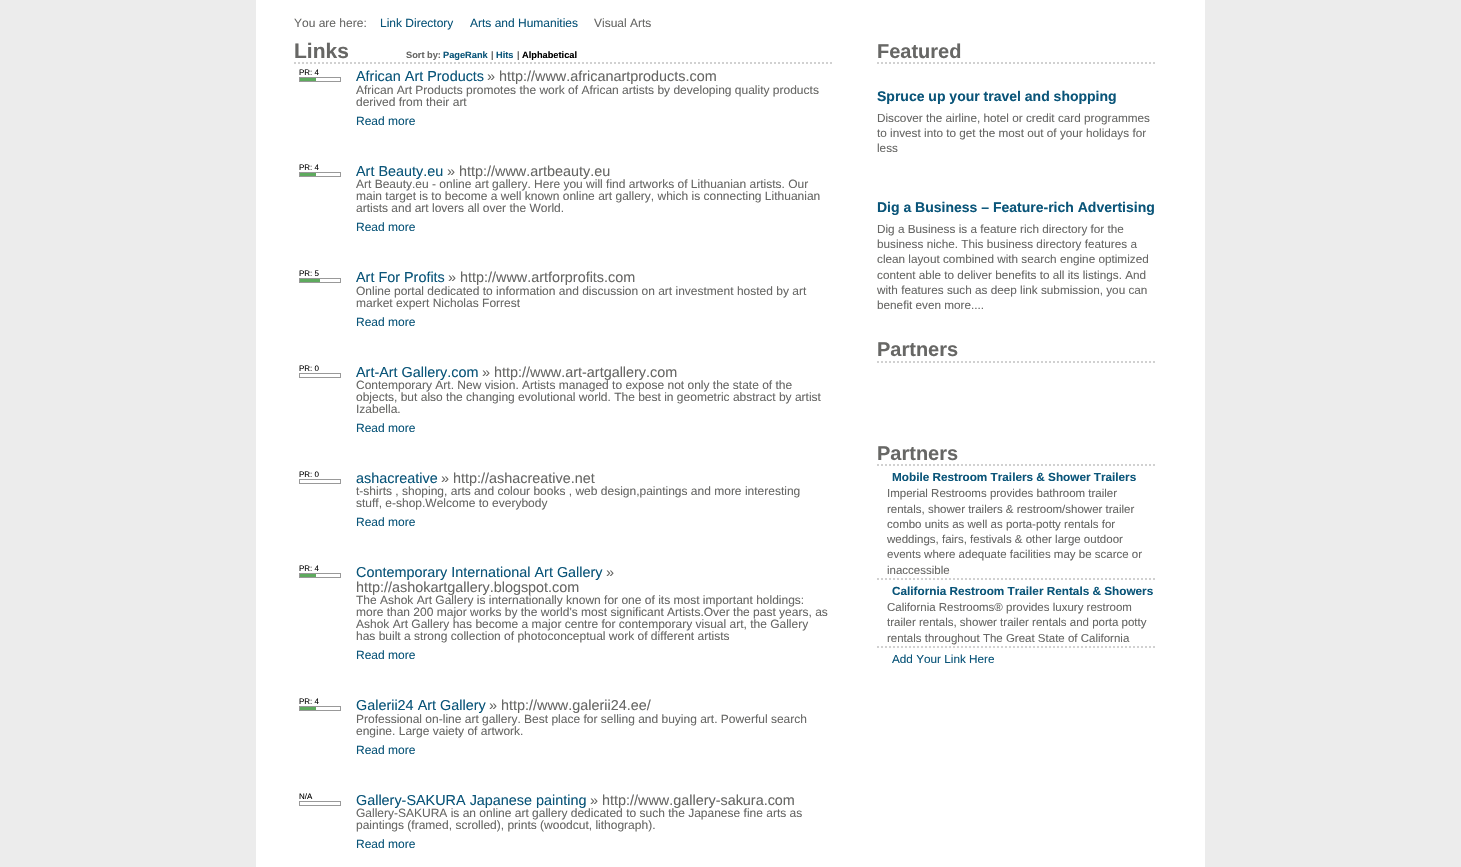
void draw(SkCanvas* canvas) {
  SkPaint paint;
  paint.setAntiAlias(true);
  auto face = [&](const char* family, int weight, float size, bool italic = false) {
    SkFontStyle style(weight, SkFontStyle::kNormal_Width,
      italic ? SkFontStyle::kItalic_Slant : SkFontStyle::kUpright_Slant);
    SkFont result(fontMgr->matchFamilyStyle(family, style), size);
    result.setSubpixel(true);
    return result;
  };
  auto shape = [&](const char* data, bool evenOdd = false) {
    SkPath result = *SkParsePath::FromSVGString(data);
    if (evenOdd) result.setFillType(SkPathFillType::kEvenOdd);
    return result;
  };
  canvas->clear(0xffececec);
  paint.setColor(0xffffffff);
  canvas->drawRect(SkRect::MakeXYWH(256, 0, 949, 867), paint);
  paint.setStroke(true);
  paint.setStrokeWidth(2);
  paint.setColor(0xffd1d1d1);
  paint.setPathEffect(SkDashPathEffect::Make({{2, 2}}, 0));
  canvas->drawPath(shape("M294 63H834"), paint);
  paint.setPathEffect(nullptr);
  paint.setStrokeWidth(1);
  paint.setColor(0xff999999);
  canvas->drawRect(SkRect::MakeXYWH(299.5f, 77.5f, 41, 4), paint);
  paint.setStroke(false);
  paint.setColor(0xff5eaa5e);
  canvas->drawRect(SkRect::MakeXYWH(300, 78, 16, 3), paint);
  paint.setStroke(true);
  paint.setColor(0xff999999);
  canvas->drawRect(SkRect::MakeXYWH(299.5f, 172.5f, 41, 4), paint);
  paint.setStroke(false);
  paint.setColor(0xff5eaa5e);
  canvas->drawRect(SkRect::MakeXYWH(300, 173, 16, 3), paint);
  paint.setStroke(true);
  paint.setColor(0xff999999);
  canvas->drawRect(SkRect::MakeXYWH(299.5f, 278.5f, 41, 4), paint);
  paint.setStroke(false);
  paint.setColor(0xff5eaa5e);
  canvas->drawRect(SkRect::MakeXYWH(300, 279, 20, 3), paint);
  paint.setStroke(true);
  paint.setColor(0xff999999);
  canvas->drawRect(SkRect::MakeXYWH(299.5f, 373.5f, 41, 4), paint);
  canvas->drawRect(SkRect::MakeXYWH(299.5f, 479.5f, 41, 4), paint);
  canvas->drawRect(SkRect::MakeXYWH(299.5f, 573.5f, 41, 4), paint);
  paint.setStroke(false);
  paint.setColor(0xff5eaa5e);
  canvas->drawRect(SkRect::MakeXYWH(300, 574, 16, 3), paint);
  paint.setStroke(true);
  paint.setColor(0xff999999);
  canvas->drawRect(SkRect::MakeXYWH(299.5f, 706.5f, 41, 4), paint);
  paint.setStroke(false);
  paint.setColor(0xff5eaa5e);
  canvas->drawRect(SkRect::MakeXYWH(300, 707, 16, 3), paint);
  paint.setStroke(true);
  paint.setColor(0xff999999);
  canvas->drawRect(SkRect::MakeXYWH(299.5f, 801.5f, 41, 4), paint);
  paint.setStrokeWidth(2);
  paint.setColor(0xffd1d1d1);
  paint.setPathEffect(SkDashPathEffect::Make({{2, 2}}, 0));
  canvas->drawPath(shape("M877 63H1157"), paint);
  paint.setPathEffect(nullptr);
  paint.setPathEffect(SkDashPathEffect::Make({{2, 2}}, 0));
  canvas->drawPath(shape("M877 362H1157"), paint);
  paint.setPathEffect(nullptr);
  paint.setPathEffect(SkDashPathEffect::Make({{2, 2}}, 0));
  canvas->drawPath(shape("M877 465H1157"), paint);
  paint.setPathEffect(nullptr);
  paint.setPathEffect(SkDashPathEffect::Make({{2, 2}}, 0));
  canvas->drawPath(shape("M877 579H1157"), paint);
  paint.setPathEffect(nullptr);
  paint.setPathEffect(SkDashPathEffect::Make({{2, 2}}, 0));
  canvas->drawPath(shape("M877 647H1157"), paint);
  paint.setPathEffect(nullptr);
  auto f0 = face("Liberation Sans", 400, 12);
  paint.setStroke(false);
  paint.setColor(0xff676765);
  canvas->drawString("You are here:", 294, 27, f0, paint);
  paint.setColor(0xff0a5579);
  canvas->drawString("Link Directory", 380, 27, f0, paint);
  canvas->drawString("Arts and Humanities", 470, 27, f0, paint);
  paint.setColor(0xff676765);
  canvas->drawString("Visual Arts", 594, 27, f0, paint);
  auto f1 = face("Liberation Sans", 700, 21);
  canvas->drawString("Links", 294, 58, f1, paint);
  auto f2 = face("Liberation Sans", 700, 9.25f);
  canvas->drawString("Sort by:", 406, 58, f2, paint);
  paint.setColor(0xff0a5579);
  canvas->drawString("PageRank", 443, 58, f2, paint);
  paint.setColor(0xff676765);
  canvas->drawString("|", 491, 58, f2, paint);
  paint.setColor(0xff0a5579);
  canvas->drawString("Hits", 496, 58, f2, paint);
  paint.setColor(0xff676765);
  canvas->drawString("|", 517, 58, f2, paint);
  paint.setColor(0xff000000);
  canvas->drawString("Alphabetical", 522, 58, f2, paint);
  auto f3 = face("Liberation Sans", 400, 8);
  canvas->drawString("PR: 4", 299, 75, f3, paint);
  auto f4 = face("Liberation Sans", 400, 14.4f);
  paint.setColor(0xff0a5579);
  canvas->drawString("African Art Products", 356, 81, f4, paint);
  paint.setColor(0xff676765);
  canvas->drawString("» http://www.africanartproducts.com", 487, 81, f4, paint);
  canvas->drawString("African Art Products promotes the work of African artists by developing quality products", 356, 94, f0, paint);
  canvas->drawString("derived from their art", 356, 106, f0, paint);
  paint.setColor(0xff0a5579);
  canvas->drawString("Read more", 356, 125, f0, paint);
  paint.setColor(0xff000000);
  canvas->drawString("PR: 4", 299, 170, f3, paint);
  paint.setColor(0xff0a5579);
  canvas->drawString("Art Beauty.eu", 356, 176, f4, paint);
  paint.setColor(0xff676765);
  canvas->drawString("» http://www.artbeauty.eu", 447, 176, f4, paint);
  {
    const struct { const char* s; float x, y; } items[] = {
      {"Art Beauty.eu - online art gallery. Here you will find artworks of Lithuanian artists. Our", 356, 188},
      {"main target is to become a well known online art gallery, which is connecting Lithuanian", 356, 200},
      {"artists and art lovers all over the World.", 356, 212},
    };
    for (auto [s, x, y] : items) {
      canvas->drawString(s, x, y, f0, paint);
    }
  }
  paint.setColor(0xff0a5579);
  canvas->drawString("Read more", 356, 231, f0, paint);
  paint.setColor(0xff000000);
  canvas->drawString("PR: 5", 299, 276, f3, paint);
  paint.setColor(0xff0a5579);
  canvas->drawString("Art For Profits", 356, 282, f4, paint);
  paint.setColor(0xff676765);
  canvas->drawString("» http://www.artforprofits.com", 448, 282, f4, paint);
  canvas->drawString("Online portal dedicated to information and discussion on art investment hosted by art", 356, 295, f0, paint);
  canvas->drawString("market expert Nicholas Forrest", 356, 307, f0, paint);
  paint.setColor(0xff0a5579);
  canvas->drawString("Read more", 356, 326, f0, paint);
  paint.setColor(0xff000000);
  canvas->drawString("PR: 0", 299, 371, f3, paint);
  paint.setColor(0xff0a5579);
  canvas->drawString("Art-Art Gallery.com", 356, 377, f4, paint);
  paint.setColor(0xff676765);
  canvas->drawString("» http://www.art-artgallery.com", 482, 377, f4, paint);
  {
    const struct { const char* s; float x, y; } items[] = {
      {"Contemporary Art. New vision. Artists managed to expose not only the state of the", 356, 389},
      {"objects, but also the changing evolutional world. The best in geometric abstract by artist", 356, 401},
      {"Izabella.", 356, 413},
    };
    for (auto [s, x, y] : items) {
      canvas->drawString(s, x, y, f0, paint);
    }
  }
  paint.setColor(0xff0a5579);
  canvas->drawString("Read more", 356, 432, f0, paint);
  paint.setColor(0xff000000);
  canvas->drawString("PR: 0", 299, 477, f3, paint);
  paint.setColor(0xff0a5579);
  canvas->drawString("ashacreative", 356, 483, f4, paint);
  paint.setColor(0xff676765);
  canvas->drawString("» http://ashacreative.net", 441, 483, f4, paint);
  canvas->drawString("t-shirts , shoping, arts and colour books , web design,paintings and more interesting", 356, 495, f0, paint);
  canvas->drawString("stuff, e-shop.Welcome to everybody", 356, 507, f0, paint);
  paint.setColor(0xff0a5579);
  canvas->drawString("Read more", 356, 526, f0, paint);
  paint.setColor(0xff000000);
  canvas->drawString("PR: 4", 299, 571, f3, paint);
  paint.setColor(0xff0a5579);
  canvas->drawString("Contemporary International Art Gallery", 356, 577, f4, paint);
  paint.setColor(0xff676765);
  canvas->drawString("»", 606, 577, f4, paint);
  canvas->drawString("http://ashokartgallery.blogspot.com", 356, 592, f4, paint);
  {
    const struct { const char* s; float x, y; } items[] = {
      {"The Ashok Art Gallery is internationally known for one of its most important holdings:", 356, 604},
      {"more than 200 major works by the world's most significant Artists.Over the past years, as", 356, 616},
      {"Ashok Art Gallery has become a major centre for contemporary visual art, the Gallery", 356, 628},
      {"has built a strong collection of photoconceptual work of different artists", 356, 640},
    };
    for (auto [s, x, y] : items) {
      canvas->drawString(s, x, y, f0, paint);
    }
  }
  paint.setColor(0xff0a5579);
  canvas->drawString("Read more", 356, 659, f0, paint);
  paint.setColor(0xff000000);
  canvas->drawString("PR: 4", 299, 704, f3, paint);
  paint.setColor(0xff0a5579);
  canvas->drawString("Galerii24 Art Gallery", 356, 710, f4, paint);
  paint.setColor(0xff676765);
  canvas->drawString("» http://www.galerii24.ee/", 489, 710, f4, paint);
  canvas->drawString("Professional on-line art gallery. Best place for selling and buying art. Powerful search", 356, 723, f0, paint);
  canvas->drawString("engine. Large vaiety of artwork.", 356, 735, f0, paint);
  paint.setColor(0xff0a5579);
  canvas->drawString("Read more", 356, 754, f0, paint);
  paint.setColor(0xff000000);
  canvas->drawString("N/A", 299, 799, f3, paint);
  paint.setColor(0xff0a5579);
  canvas->drawString("Gallery-SAKURA Japanese painting", 356, 805, f4, paint);
  paint.setColor(0xff676765);
  canvas->drawString("» http://www.gallery-sakura.com", 590, 805, f4, paint);
  canvas->drawString("Gallery-SAKURA is an online art gallery dedicated to such the Japanese fine arts as", 356, 817, f0, paint);
  canvas->drawString("paintings (framed, scrolled), prints (woodcut, lithograph).", 356, 829, f0, paint);
  paint.setColor(0xff0a5579);
  canvas->drawString("Read more", 356, 848, f0, paint);
  auto f5 = face("Liberation Sans", 700, 20);
  paint.setColor(0xff676765);
  canvas->drawString("Featured", 877, 58, f5, paint);
  auto f6 = face("Liberation Sans", 700, 14);
  paint.setColor(0xff0a5579);
  canvas->drawString("Spruce up your travel and shopping", 877, 101, f6, paint);
  auto f7 = face("Liberation Sans", 400, 11.75f);
  paint.setColor(0xff676765);
  {
    const struct { const char* s; float x, y; } items[] = {
      {"Discover the airline, hotel or credit card programmes", 877, 122},
      {"to invest into to get the most out of your holidays for", 877, 137},
      {"less", 877, 152},
    };
    for (auto [s, x, y] : items) {
      canvas->drawString(s, x, y, f7, paint);
    }
  }
  paint.setColor(0xff0a5579);
  canvas->drawString("Dig a Business – Feature-rich Advertising", 877, 212, f6, paint);
  paint.setColor(0xff676765);
  {
    const struct { const char* s; float x, y; } items[] = {
      {"Dig a Business is a feature rich directory for the", 877, 233},
      {"business niche. This business directory features a", 877, 248},
      {"clean layout combined with search engine optimized", 877, 263},
      {"content able to deliver benefits to all its listings. And", 877, 279},
      {"with features such as deep link submission, you can", 877, 294},
      {"benefit even more....", 877, 309},
    };
    for (auto [s, x, y] : items) {
      canvas->drawString(s, x, y, f7, paint);
    }
  }
  canvas->drawString("Partners", 877, 356, f5, paint);
  canvas->drawString("Partners", 877, 460, f5, paint);
  auto f8 = face("Liberation Sans", 700, 11.75f);
  paint.setColor(0xff0a5579);
  canvas->drawString("Mobile Restroom Trailers & Shower Trailers", 892, 481, f8, paint);
  auto f9 = face("Liberation Sans", 400, 11.5f);
  paint.setColor(0xff676765);
  {
    const struct { const char* s; float x, y; } items[] = {
      {"Imperial Restrooms provides bathroom trailer", 887, 497},
      {"rentals, shower trailers & restroom/shower trailer", 887, 513},
      {"combo units as well as porta-potty rentals for", 887, 528},
      {"weddings, fairs, festivals & other large outdoor", 887, 543},
      {"events where adequate facilities may be scarce or", 887, 558},
      {"inaccessible", 887, 574},
    };
    for (auto [s, x, y] : items) {
      canvas->drawString(s, x, y, f9, paint);
    }
  }
  paint.setColor(0xff0a5579);
  canvas->drawString("California Restroom Trailer Rentals & Showers", 892, 595, f8, paint);
  paint.setColor(0xff676765);
  {
    const struct { const char* s; float x, y; } items[] = {
      {"California Restrooms® provides luxury restroom", 887, 611},
      {"trailer rentals, shower trailer rentals and porta potty", 887, 626},
      {"rentals throughout The Great State of California", 887, 642},
    };
    for (auto [s, x, y] : items) {
      canvas->drawString(s, x, y, f9, paint);
    }
  }
  paint.setColor(0xff0a5579);
  canvas->drawString("Add Your Link Here", 892, 663, f7, paint);
}
